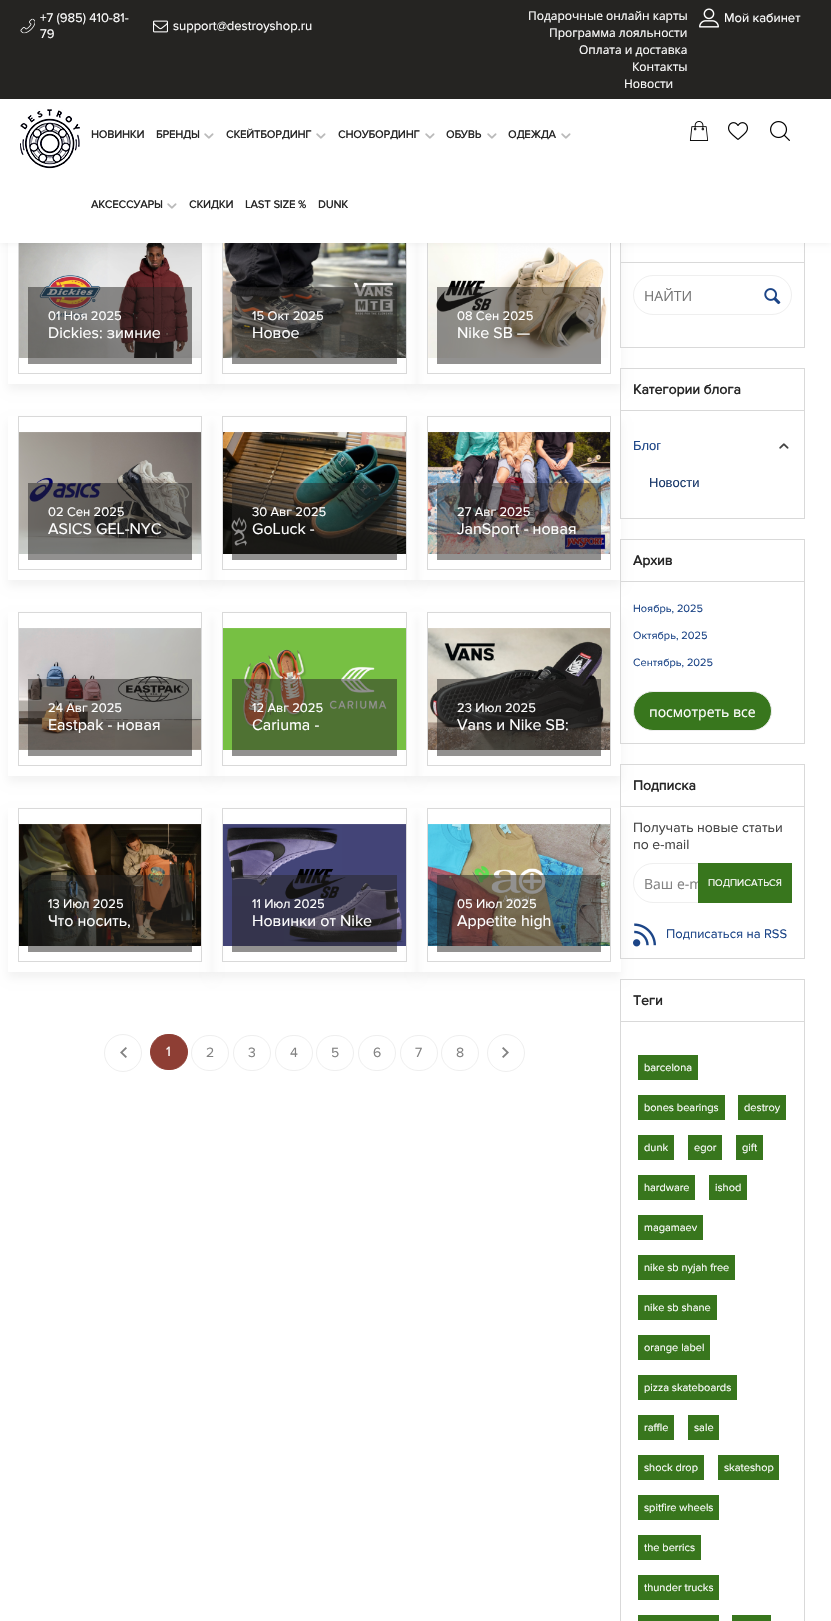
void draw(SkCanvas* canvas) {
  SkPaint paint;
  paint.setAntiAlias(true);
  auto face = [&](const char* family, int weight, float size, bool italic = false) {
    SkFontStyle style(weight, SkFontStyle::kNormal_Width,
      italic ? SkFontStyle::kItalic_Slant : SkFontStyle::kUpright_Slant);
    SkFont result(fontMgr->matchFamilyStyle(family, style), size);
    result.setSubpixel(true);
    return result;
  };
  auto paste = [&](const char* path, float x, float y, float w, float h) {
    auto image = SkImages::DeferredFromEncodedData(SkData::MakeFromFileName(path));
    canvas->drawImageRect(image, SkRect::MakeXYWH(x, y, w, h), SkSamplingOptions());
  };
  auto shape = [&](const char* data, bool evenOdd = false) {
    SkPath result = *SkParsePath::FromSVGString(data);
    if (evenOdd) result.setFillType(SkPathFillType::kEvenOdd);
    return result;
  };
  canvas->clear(0xffffffff);
  paint.setColor(0xff252422);
  canvas->drawRect(SkRect::MakeXYWH(0, 0, 831, 99), paint);
  paste("img/1.png", 20, 18, 15, 16);
  paste("img/2.png", 153, 20, 15, 13);
  paste("img/3.png", 699, 8, 20, 20);
  canvas->save();
  canvas->clipPath(shape("M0 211H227V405H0ZM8 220H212V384H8Z", true), true);
  paint.setColor(0x0d000000);
  paint.setMaskFilter(SkMaskFilter::MakeBlur(kNormal_SkBlurStyle, 4.5f));
  canvas->drawRect(SkRect::MakeXYWH(8, 226, 204, 164), paint);
  paint.setMaskFilter(nullptr);
  canvas->restore();
  canvas->save();
  canvas->clipPath(shape("M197 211H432V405H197ZM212 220H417V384H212Z", true), true);
  paint.setMaskFilter(SkMaskFilter::MakeBlur(kNormal_SkBlurStyle, 4.5f));
  canvas->drawRect(SkRect::MakeXYWH(212, 226, 205, 164), paint);
  paint.setMaskFilter(nullptr);
  canvas->restore();
  paint.setStroke(true);
  paint.setStrokeWidth(1);
  paint.setColor(0xffd9d9d9);
  canvas->drawRect(SkRect::MakeXYWH(18.5f, 220.5f, 183, 153), paint);
  paste("img/9.png", 19, 243, 182, 115);
  canvas->save();
  canvas->clipPath(shape("M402 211H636V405H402ZM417 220H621V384H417Z", true), true);
  paint.setStroke(false);
  paint.setColor(0x0d000000);
  paint.setMaskFilter(SkMaskFilter::MakeBlur(kNormal_SkBlurStyle, 4.5f));
  canvas->drawRect(SkRect::MakeXYWH(417, 226, 204, 164), paint);
  paint.setMaskFilter(nullptr);
  canvas->restore();
  paint.setStroke(true);
  paint.setColor(0xffd9d9d9);
  canvas->drawRect(SkRect::MakeXYWH(222.5f, 220.5f, 184, 153), paint);
  paste("img/10.png", 223, 243, 183, 115);
  canvas->drawRect(SkRect::MakeXYWH(427.5f, 220.5f, 183, 153), paint);
  paste("img/11.png", 428, 243, 180, 115);
  canvas->drawRect(SkRect::MakeXYWH(620.5f, 220.5f, 184, 127), paint);
  paint.setStroke(false);
  paint.setColor(0x0d000000);
  paint.setMaskFilter(SkMaskFilter::MakeBlur(kNormal_SkBlurStyle, 3));
  canvas->drawRect(SkRect::MakeXYWH(0, 100, 831, 144), paint);
  paint.setMaskFilter(nullptr);
  paint.setColor(0xffffffff);
  canvas->drawRect(SkRect::MakeXYWH(0, 99, 831, 144), paint);
  paste("img/4.png", 20, 109, 60, 60);
  paste("img/5.png", 204, 133, 10, 6);
  paste("img/5.png", 316, 133, 10, 6);
  paste("img/5.png", 425, 133, 10, 6);
  paste("img/5.png", 487, 133, 10, 6);
  paste("img/5.png", 561, 133, 10, 6);
  paste("img/5.png", 167, 203, 10, 6);
  paste("img/6.png", 689, 121, 20, 20);
  paste("img/7.png", 728, 122, 20, 18);
  paste("img/8.png", 770, 121, 20, 20);
  {
    const struct { float x, y, w, h; SkColor color; } items[] = {
      {28, 287, 164, 77, 0x80252422},
      {232, 287, 165, 77, 0x80252422},
      {437, 287, 164, 77, 0x80252422},
    };
    for (auto [x, y, w, h, color] : items) {
      paint.setColor(color);
      canvas->drawRect(SkRect::MakeXYWH(x, y, w, h), paint);
    }
  }
  canvas->save();
  canvas->clipPath(shape("M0 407H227V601H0ZM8 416H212V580H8Z", true), true);
  paint.setColor(0x0d000000);
  paint.setMaskFilter(SkMaskFilter::MakeBlur(kNormal_SkBlurStyle, 4.5f));
  canvas->drawRect(SkRect::MakeXYWH(8, 422, 204, 164), paint);
  paint.setMaskFilter(nullptr);
  canvas->restore();
  canvas->save();
  canvas->clipPath(shape("M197 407H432V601H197ZM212 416H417V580H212Z", true), true);
  paint.setMaskFilter(SkMaskFilter::MakeBlur(kNormal_SkBlurStyle, 4.5f));
  canvas->drawRect(SkRect::MakeXYWH(212, 422, 205, 164), paint);
  paint.setMaskFilter(nullptr);
  canvas->restore();
  paint.setStroke(true);
  paint.setColor(0xffd9d9d9);
  canvas->drawRect(SkRect::MakeXYWH(18.5f, 416.5f, 183, 153), paint);
  paste("img/12.png", 19, 432, 182, 122);
  paint.setStroke(false);
  paint.setColor(0x80252422);
  canvas->drawRect(SkRect::MakeXYWH(28, 483, 164, 77), paint);
  canvas->save();
  canvas->clipPath(shape("M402 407H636V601H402ZM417 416H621V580H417Z", true), true);
  paint.setColor(0x0d000000);
  paint.setMaskFilter(SkMaskFilter::MakeBlur(kNormal_SkBlurStyle, 4.5f));
  canvas->drawRect(SkRect::MakeXYWH(417, 422, 204, 164), paint);
  paint.setMaskFilter(nullptr);
  canvas->restore();
  paint.setStroke(true);
  paint.setColor(0xffd9d9d9);
  canvas->drawRect(SkRect::MakeXYWH(222.5f, 416.5f, 184, 153), paint);
  paste("img/13.png", 223, 432, 183, 122);
  paint.setStroke(false);
  paint.setColor(0x80252422);
  canvas->drawRect(SkRect::MakeXYWH(232, 483, 165, 77), paint);
  paint.setStroke(true);
  paint.setColor(0xffd9d9d9);
  canvas->drawRect(SkRect::MakeXYWH(427.5f, 416.5f, 183, 153), paint);
  paste("img/14.png", 428, 432, 182, 122);
  paint.setStroke(false);
  paint.setColor(0x80252422);
  canvas->drawRect(SkRect::MakeXYWH(437, 483, 164, 77), paint);
  canvas->save();
  canvas->clipPath(shape("M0 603H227V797H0ZM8 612H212V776H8Z", true), true);
  paint.setColor(0x0d000000);
  paint.setMaskFilter(SkMaskFilter::MakeBlur(kNormal_SkBlurStyle, 4.5f));
  canvas->drawRect(SkRect::MakeXYWH(8, 618, 204, 164), paint);
  paint.setMaskFilter(nullptr);
  canvas->restore();
  canvas->save();
  canvas->clipPath(shape("M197 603H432V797H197ZM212 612H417V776H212Z", true), true);
  paint.setMaskFilter(SkMaskFilter::MakeBlur(kNormal_SkBlurStyle, 4.5f));
  canvas->drawRect(SkRect::MakeXYWH(212, 618, 205, 164), paint);
  paint.setMaskFilter(nullptr);
  canvas->restore();
  paint.setStroke(true);
  paint.setColor(0xffd9d9d9);
  canvas->drawRect(SkRect::MakeXYWH(18.5f, 612.5f, 183, 153), paint);
  paste("img/15.png", 19, 628, 182, 122);
  paint.setStroke(false);
  paint.setColor(0x80252422);
  canvas->drawRect(SkRect::MakeXYWH(28, 679, 164, 77), paint);
  canvas->save();
  canvas->clipPath(shape("M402 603H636V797H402ZM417 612H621V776H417Z", true), true);
  paint.setColor(0x0d000000);
  paint.setMaskFilter(SkMaskFilter::MakeBlur(kNormal_SkBlurStyle, 4.5f));
  canvas->drawRect(SkRect::MakeXYWH(417, 618, 204, 164), paint);
  paint.setMaskFilter(nullptr);
  canvas->restore();
  paint.setStroke(true);
  paint.setColor(0xffd9d9d9);
  canvas->drawRect(SkRect::MakeXYWH(222.5f, 612.5f, 184, 153), paint);
  paste("img/16.png", 223, 628, 183, 122);
  paint.setStroke(false);
  paint.setColor(0x80252422);
  canvas->drawRect(SkRect::MakeXYWH(232, 679, 165, 77), paint);
  paint.setStroke(true);
  paint.setColor(0xffd9d9d9);
  canvas->drawRect(SkRect::MakeXYWH(427.5f, 612.5f, 183, 153), paint);
  paste("img/17.png", 428, 628, 182, 122);
  paint.setStroke(false);
  paint.setColor(0x80252422);
  canvas->drawRect(SkRect::MakeXYWH(437, 679, 164, 77), paint);
  canvas->save();
  canvas->clipPath(shape("M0 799H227V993H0ZM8 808H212V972H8Z", true), true);
  paint.setColor(0x0d000000);
  paint.setMaskFilter(SkMaskFilter::MakeBlur(kNormal_SkBlurStyle, 4.5f));
  canvas->drawRect(SkRect::MakeXYWH(8, 814, 204, 164), paint);
  paint.setMaskFilter(nullptr);
  canvas->restore();
  canvas->save();
  canvas->clipPath(shape("M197 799H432V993H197ZM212 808H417V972H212Z", true), true);
  paint.setMaskFilter(SkMaskFilter::MakeBlur(kNormal_SkBlurStyle, 4.5f));
  canvas->drawRect(SkRect::MakeXYWH(212, 814, 205, 164), paint);
  paint.setMaskFilter(nullptr);
  canvas->restore();
  paint.setStroke(true);
  paint.setColor(0xffd9d9d9);
  canvas->drawRect(SkRect::MakeXYWH(18.5f, 808.5f, 183, 153), paint);
  paste("img/18.png", 19, 824, 182, 122);
  paint.setStroke(false);
  paint.setColor(0x80252422);
  canvas->drawRect(SkRect::MakeXYWH(28, 875, 164, 77), paint);
  canvas->save();
  canvas->clipPath(shape("M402 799H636V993H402ZM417 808H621V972H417Z", true), true);
  paint.setColor(0x0d000000);
  paint.setMaskFilter(SkMaskFilter::MakeBlur(kNormal_SkBlurStyle, 4.5f));
  canvas->drawRect(SkRect::MakeXYWH(417, 814, 204, 164), paint);
  paint.setMaskFilter(nullptr);
  canvas->restore();
  paint.setStroke(true);
  paint.setColor(0xffd9d9d9);
  canvas->drawRect(SkRect::MakeXYWH(222.5f, 808.5f, 184, 153), paint);
  paste("img/19.png", 223, 824, 183, 122);
  paint.setStroke(false);
  paint.setColor(0x80252422);
  canvas->drawRect(SkRect::MakeXYWH(232, 875, 165, 77), paint);
  paint.setStroke(true);
  paint.setColor(0xffd9d9d9);
  canvas->drawRect(SkRect::MakeXYWH(427.5f, 808.5f, 183, 153), paint);
  paste("img/20.png", 428, 824, 182, 122);
  paint.setStroke(false);
  paint.setColor(0x80252422);
  canvas->drawRect(SkRect::MakeXYWH(437, 875, 164, 77), paint);
  paint.setStroke(true);
  paint.setColor(0xffefefef);
  canvas->drawCircle(123, 1053, 18.5f, paint);
  paste("img/21.png", 120, 1047, 7, 11);
  paint.setStroke(false);
  paint.setColor(0xff8e3e34);
  canvas->drawRoundRect(SkRect::MakeXYWH(150.5f, 1034.5f, 37, 35), 17.5f, 17.5f, paint);
  paint.setStroke(true);
  canvas->drawRoundRect(SkRect::MakeXYWH(150.5f, 1034.5f, 37, 35), 17.5f, 17.5f, paint);
  paint.setColor(0xffefefef);
  canvas->drawRoundRect(SkRect::MakeXYWH(191.5f, 1035.5f, 37, 35), 17.5f, 17.5f, paint);
  canvas->drawRoundRect(SkRect::MakeXYWH(233.5f, 1035.5f, 37, 35), 17.5f, 17.5f, paint);
  canvas->drawRoundRect(SkRect::MakeXYWH(275.5f, 1035.5f, 37, 35), 17.5f, 17.5f, paint);
  canvas->drawRoundRect(SkRect::MakeXYWH(316.5f, 1035.5f, 37, 35), 17.5f, 17.5f, paint);
  canvas->drawRoundRect(SkRect::MakeXYWH(358.5f, 1035.5f, 37, 35), 17.5f, 17.5f, paint);
  canvas->drawRoundRect(SkRect::MakeXYWH(400.5f, 1035.5f, 37, 35), 17.5f, 17.5f, paint);
  canvas->drawRoundRect(SkRect::MakeXYWH(441.5f, 1035.5f, 37, 35), 17.5f, 17.5f, paint);
  canvas->drawCircle(506, 1053, 18.5f, paint);
  paste("img/22.png", 502, 1047, 7, 11);
  paint.setStroke(false);
  paint.setColor(0xffd9d9d9);
  canvas->drawRect(SkRect::MakeXYWH(621, 262, 183, 1), paint);
  paint.setStroke(true);
  paint.setColor(0xffefefef);
  canvas->drawRoundRect(SkRect::MakeXYWH(633.5f, 275.5f, 158, 39), 19.5f, 19.5f, paint);
  paste("img/23.png", 764, 288, 17, 17);
  paint.setColor(0xffd9d9d9);
  canvas->drawRect(SkRect::MakeXYWH(620.5f, 368.5f, 184, 150), paint);
  paint.setStroke(false);
  canvas->drawRect(SkRect::MakeXYWH(621, 410, 183, 1), paint);
  paste("img/24.png", 779, 443, 10, 6);
  paint.setStroke(true);
  canvas->drawRect(SkRect::MakeXYWH(620.5f, 539.5f, 184, 204), paint);
  paint.setStroke(false);
  canvas->drawRect(SkRect::MakeXYWH(621, 581, 183, 1), paint);
  paint.setColor(0xff38761d);
  canvas->drawRoundRect(SkRect::MakeXYWH(633.5f, 691.5f, 138, 39), 19.5f, 19.5f, paint);
  paint.setStroke(true);
  paint.setColor(0xffefefef);
  canvas->drawRoundRect(SkRect::MakeXYWH(633.5f, 691.5f, 138, 39), 19.5f, 19.5f, paint);
  paint.setColor(0xffd9d9d9);
  canvas->drawRect(SkRect::MakeXYWH(620.5f, 764.5f, 184, 194), paint);
  paint.setStroke(false);
  canvas->drawRect(SkRect::MakeXYWH(621, 806, 183, 1), paint);
  paint.setStroke(true);
  paint.setColor(0xffefefef);
  canvas->drawRoundRect(SkRect::MakeXYWH(633.5f, 863.5f, 158, 39), 19.5f, 19.5f, paint);
  paste("img/25.png", 633, 923, 23, 24);
  paint.setColor(0xffd9d9d9);
  canvas->drawRect(SkRect::MakeXYWH(620.5f, 979.5f, 184, 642), paint);
  paint.setStroke(false);
  {
    const struct { float x, y, w, h; SkColor color; } items[] = {
      {621, 1021, 183, 1, 0xffd9d9d9},
      {638, 1055, 60, 25, 0xff38761d},
      {638, 1095, 87, 25, 0xff38761d},
      {738, 1095, 48, 25, 0xff38761d},
      {638, 1135, 36, 25, 0xff38761d},
      {688, 1135, 34, 25, 0xff38761d},
      {736, 1135, 27, 25, 0xff38761d},
      {638, 1175, 57, 25, 0xff38761d},
      {709, 1175, 38, 25, 0xff38761d},
      {638, 1215, 65, 25, 0xff38761d},
      {638, 1255, 97, 25, 0xff38761d},
      {638, 1295, 79, 25, 0xff38761d},
      {638, 1335, 72, 25, 0xff38761d},
      {638, 1375, 99, 25, 0xff38761d},
      {638, 1415, 36, 25, 0xff38761d},
      {688, 1415, 31, 25, 0xff38761d},
      {638, 1455, 66, 25, 0xff38761d},
      {718, 1455, 61, 25, 0xff38761d},
      {638, 1495, 81, 25, 0xff38761d},
      {638, 1535, 63, 25, 0xff38761d},
      {638, 1575, 81, 25, 0xff38761d},
      {638, 1615, 81, 6, 0xff38761d},
      {732, 1615, 39, 6, 0xff38761d},
    };
    for (auto [x, y, w, h, color] : items) {
      paint.setColor(color);
      canvas->drawRect(SkRect::MakeXYWH(x, y, w, h), paint);
    }
  }
  auto f0 = face("Proxima Nova", 400, 13);
  paint.setColor(0xffffffff);
  {
    const struct { const char* s; float x, y; } items[] = {
      {"+7 (985) 410-81-", 40, 22},
      {"79", 40, 38},
      {"support@destroyshop.ru", 173, 30},
    };
    for (auto [s, x, y] : items) {
      canvas->drawString(s, x, y, f0, paint);
    }
  }
  auto f1 = face("Open Sans", 400, 12);
  {
    const struct { const char* s; float x, y; } items[] = {
      {"Подарочные онлайн карты", 528, 20},
      {"Программа лояльности", 549, 37},
      {"Оплата и доставка", 579, 54},
      {"Контакты", 632, 71},
      {"Новости", 624, 88},
    };
    for (auto [s, x, y] : items) {
      canvas->drawString(s, x, y, f1, paint);
    }
  }
  canvas->drawString("Мой кабинет", 724, 22, f0, paint);
  auto f2 = face("Proxima Nova", 700, 11);
  paint.setColor(0xff272727);
  {
    const struct { const char* s; float x, y; } items[] = {
      {"НОВИНКИ", 91, 138},
      {"БРЕНДЫ", 156, 138},
      {"СКЕЙТБОРДИНГ", 226, 138},
      {"СНОУБОРДИНГ", 338, 138},
      {"ОБУВЬ", 446, 138},
      {"ОДЕЖДА", 508, 138},
      {"АКСЕССУАРЫ", 91, 208},
      {"СКИДКИ", 189, 208},
      {"LAST SIZE %", 245, 208},
      {"DUNK", 318, 208},
    };
    for (auto [s, x, y] : items) {
      canvas->drawString(s, x, y, f2, paint);
    }
  }
  paint.setColor(0xffffffff);
  canvas->drawString("01 Ноя 2025", 48, 320, f0, paint);
  auto f3 = face("Proxima Nova", 400, 16);
  canvas->drawString("Dickies: зимние", 48, 338, f3, paint);
  canvas->drawString("15 Окт 2025", 252, 320, f0, paint);
  canvas->drawString("Новое", 252, 338, f3, paint);
  canvas->drawString("08 Сен 2025", 457, 320, f0, paint);
  canvas->drawString("Nike SB —", 457, 338, f3, paint);
  canvas->drawString("02 Сен 2025", 48, 516, f0, paint);
  canvas->drawString("ASICS GEL-NYC", 48, 534, f3, paint);
  canvas->drawString("30 Авг 2025", 252, 516, f0, paint);
  canvas->drawString("GoLuck -", 252, 534, f3, paint);
  canvas->drawString("27 Авг 2025", 457, 516, f0, paint);
  canvas->drawString("JanSport - новая", 457, 534, f3, paint);
  canvas->drawString("24 Авг 2025", 48, 712, f0, paint);
  canvas->drawString("Eastpak - новая", 48, 730, f3, paint);
  canvas->drawString("12 Авг 2025", 252, 712, f0, paint);
  canvas->drawString("Cariuma -", 252, 730, f3, paint);
  canvas->drawString("23 Июл 2025", 457, 712, f0, paint);
  canvas->drawString("Vans и Nike SB:", 457, 730, f3, paint);
  canvas->drawString("13 Июл 2025", 48, 908, f0, paint);
  canvas->drawString("Что носить,", 48, 926, f3, paint);
  canvas->drawString("11 Июл 2025", 252, 908, f0, paint);
  canvas->drawString("Новинки от Nike", 252, 926, f3, paint);
  canvas->drawString("05 Июл 2025", 457, 908, f0, paint);
  canvas->drawString("Appetite high", 457, 926, f3, paint);
  auto f4 = face("Proxima Nova", 400, 14);
  canvas->drawString("1", 166, 1056, f4, paint);
  paint.setColor(0xff828282);
  {
    const struct { const char* s; float x, y; } items[] = {
      {"2", 206, 1057},
      {"3", 248, 1057},
      {"4", 290, 1057},
      {"5", 331, 1057},
      {"6", 373, 1057},
      {"7", 415, 1057},
      {"8", 456, 1057},
    };
    for (auto [s, x, y] : items) {
      canvas->drawString(s, x, y, f4, paint);
    }
  }
  auto f5 = face("Open Sans", 400, 14);
  paint.setColor(0xff757575);
  canvas->drawString("НАЙТИ", 644, 301, f5, paint);
  auto f6 = face("Proxima Nova", 700, 14);
  paint.setColor(0xff272727);
  canvas->drawString("Категории блога", 633, 394, f6, paint);
  auto f7 = face("Liberation Sans", 400, 13);
  paint.setColor(0xff1c4587);
  canvas->drawString("Блог", 633, 450, f7, paint);
  paint.setColor(0xff163669);
  canvas->drawString("Новости", 649, 487, f7, paint);
  paint.setColor(0xff272727);
  canvas->drawString("Архив", 633, 565, f6, paint);
  auto f8 = face("Proxima Nova", 400, 11);
  paint.setColor(0xff1c4587);
  {
    const struct { const char* s; float x, y; } items[] = {
      {"Ноябрь, 2025", 633, 612},
      {"Октябрь, 2025", 633, 639},
      {"Сентябрь, 2025", 633, 666},
    };
    for (auto [s, x, y] : items) {
      canvas->drawString(s, x, y, f8, paint);
    }
  }
  paint.setColor(0xffffffff);
  canvas->drawString("посмотреть все", 649, 717, f5, paint);
  paint.setColor(0xff272727);
  canvas->drawString("Подписка", 633, 790, f6, paint);
  paint.setColor(0xff434343);
  canvas->drawString("Получать новые статьи", 633, 832, f4, paint);
  canvas->drawString("по e-mail", 633, 849, f4, paint);
  paint.setColor(0xff828282);
  canvas->drawString("Ваш e-m", 644, 889, f5, paint);
  paint.setColor(0xff38761d);
  canvas->drawRect(SkRect::MakeXYWH(698, 863, 94, 40), paint);
  auto f9 = face("Proxima Nova", 400, 10);
  paint.setColor(0xffffffff);
  canvas->drawString("ПОДПИСАТЬСЯ", 708, 886, f9, paint);
  paint.setColor(0xff1c4587);
  canvas->drawString("Подписаться на RSS", 666, 938, f0, paint);
  paint.setColor(0xff272727);
  canvas->drawString("Теги", 633, 1005, f6, paint);
  paint.setColor(0xffffffff);
  {
    const struct { const char* s; float x, y; } items[] = {
      {"barcelona", 644, 1071},
      {"bones bearings", 644, 1111},
      {"destroy", 744, 1111},
      {"dunk", 644, 1151},
      {"egor", 694, 1151},
      {"gift", 742, 1151},
      {"hardware", 644, 1191},
      {"ishod", 715, 1191},
      {"magamaev", 644, 1231},
      {"nike sb nyjah free", 644, 1271},
      {"nike sb shane", 644, 1311},
      {"orange label", 644, 1351},
      {"pizza skateboards", 644, 1391},
      {"raffle", 644, 1431},
      {"sale", 694, 1431},
      {"shock drop", 644, 1471},
      {"skateshop", 724, 1471},
      {"spitfire wheels", 644, 1511},
      {"the berrics", 644, 1551},
      {"thunder trucks", 644, 1591},
    };
    for (auto [s, x, y] : items) {
      canvas->drawString(s, x, y, f8, paint);
    }
  }
}
